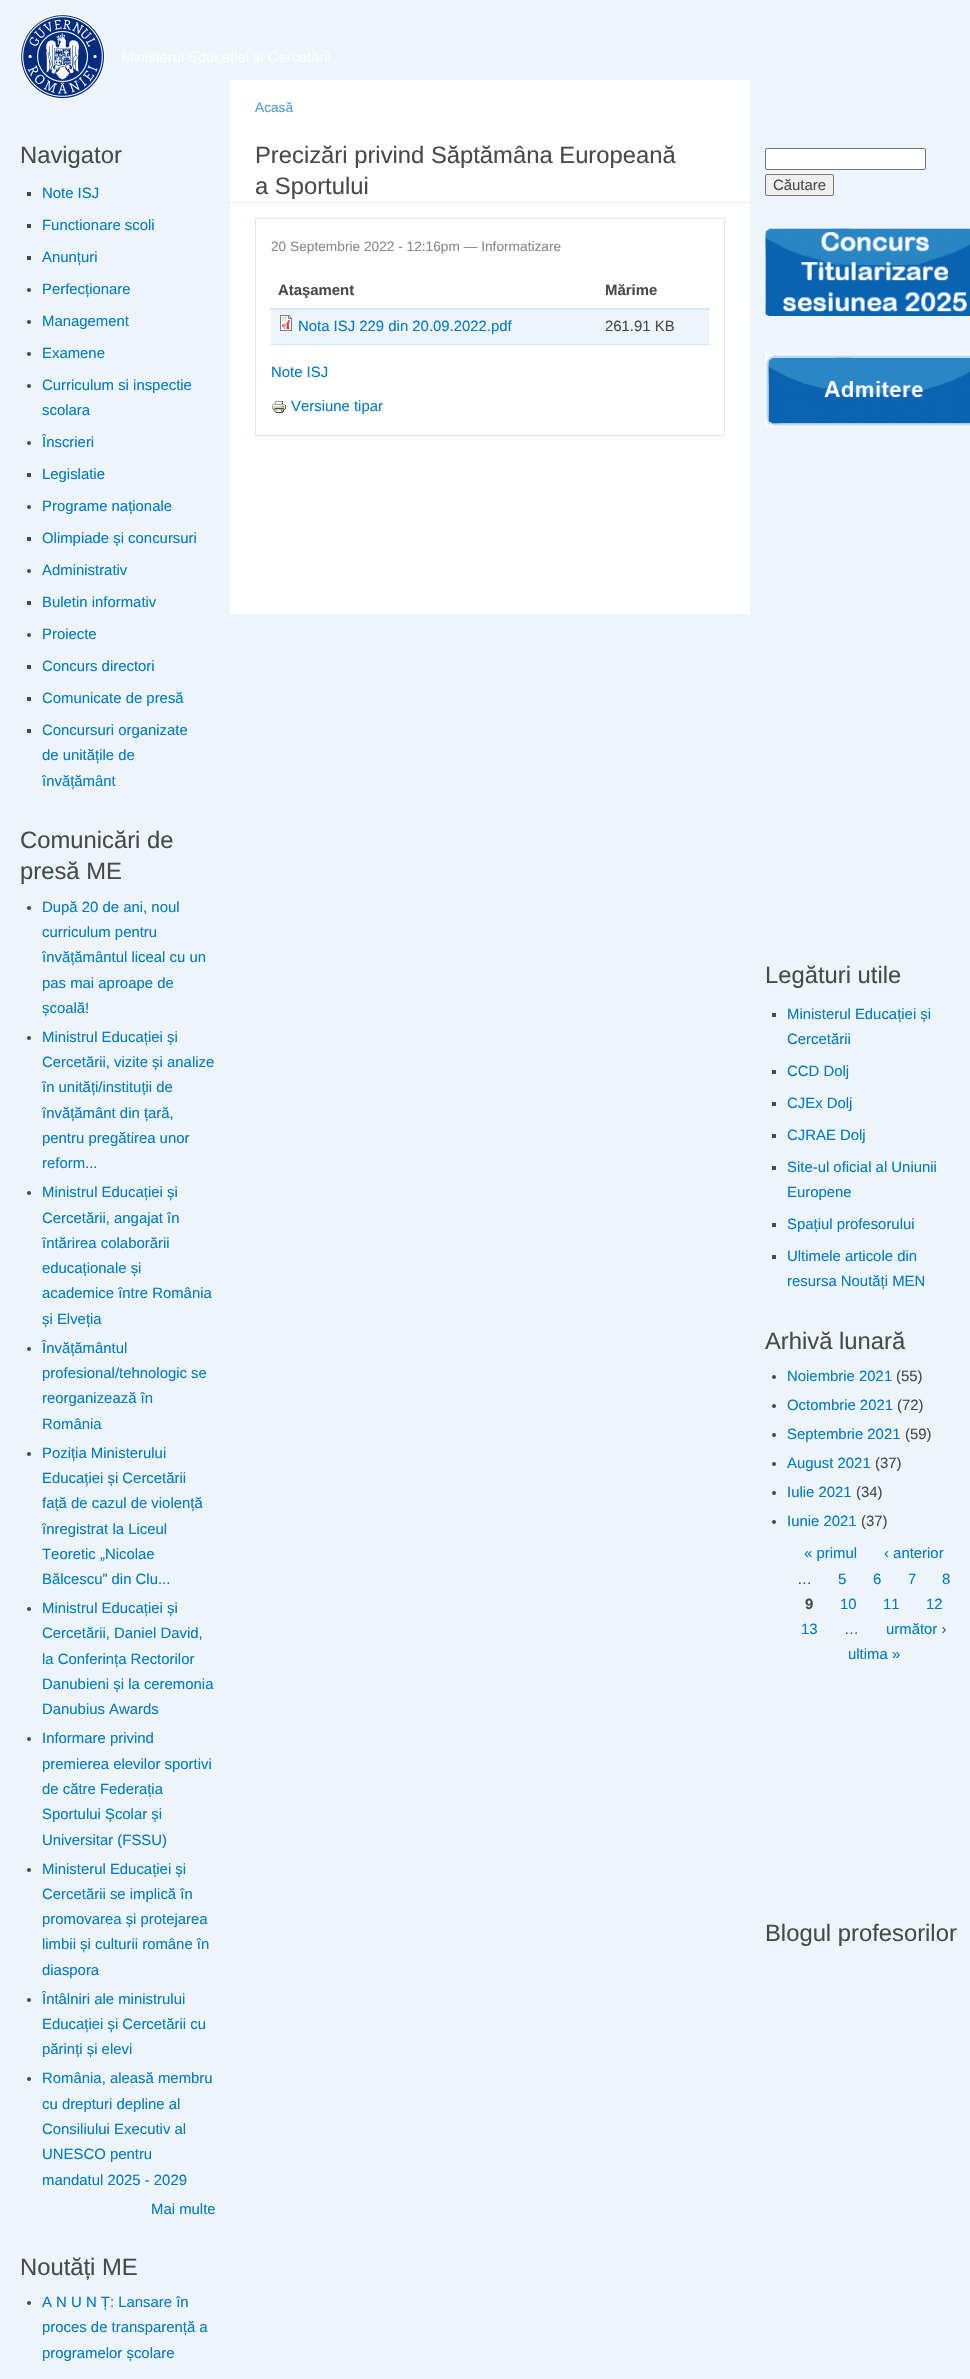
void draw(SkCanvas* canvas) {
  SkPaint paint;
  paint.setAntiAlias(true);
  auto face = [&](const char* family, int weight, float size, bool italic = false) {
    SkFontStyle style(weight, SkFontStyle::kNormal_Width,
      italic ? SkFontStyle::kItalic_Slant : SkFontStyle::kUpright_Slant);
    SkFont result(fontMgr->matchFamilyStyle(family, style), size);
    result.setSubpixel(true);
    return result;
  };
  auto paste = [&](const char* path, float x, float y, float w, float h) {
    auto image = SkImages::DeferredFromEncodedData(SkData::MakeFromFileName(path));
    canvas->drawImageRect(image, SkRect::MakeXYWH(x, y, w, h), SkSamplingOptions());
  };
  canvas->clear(0xffedf5fa);
  paint.setColor(0xffffffff);
  canvas->drawRect(SkRect::MakeXYWH(230, 80, 520, 534), paint);
  paste("img/1.png", 20, 14, 310, 85);
  {
    const struct { float x, y, w, h; SkColor color; } items[] = {
      {27, 192, 4, 4, 0xff494949},
      {27, 224, 4, 4, 0xff494949},
      {27, 256, 4, 4, 0xff494949},
    };
    for (auto [x, y, w, h, color] : items) {
      paint.setColor(color);
      canvas->drawRect(SkRect::MakeXYWH(x, y, w, h), paint);
    }
  }
  canvas->drawCircle(29, 290, 2, paint);
  canvas->drawCircle(29, 322, 2, paint);
  canvas->drawCircle(29, 354, 2, paint);
  canvas->drawCircle(29, 386, 2, paint);
  canvas->drawCircle(29, 443, 2, paint);
  canvas->drawRect(SkRect::MakeXYWH(27, 473, 4, 4), paint);
  canvas->drawCircle(29, 507, 2, paint);
  canvas->drawRect(SkRect::MakeXYWH(27, 537, 4, 4), paint);
  canvas->drawCircle(29, 571, 2, paint);
  canvas->drawRect(SkRect::MakeXYWH(27, 601, 4, 4), paint);
  canvas->drawCircle(29, 635, 2, paint);
  {
    const struct { float x, y, w, h; SkColor color; } items[] = {
      {27, 665, 4, 4, 0xff494949},
      {27, 697, 4, 4, 0xff494949},
      {27, 729, 4, 4, 0xff494949},
    };
    for (auto [x, y, w, h, color] : items) {
      paint.setColor(color);
      canvas->drawRect(SkRect::MakeXYWH(x, y, w, h), paint);
    }
  }
  canvas->drawCircle(29, 908, 2, paint);
  canvas->drawCircle(29, 1038, 2, paint);
  canvas->drawCircle(29, 1193, 2, paint);
  canvas->drawCircle(29, 1349, 2, paint);
  canvas->drawCircle(29, 1454, 2, paint);
  canvas->drawCircle(29, 1609, 2, paint);
  canvas->drawCircle(29, 1739, 2, paint);
  canvas->drawCircle(29, 1870, 2, paint);
  canvas->drawCircle(29, 2000, 2, paint);
  canvas->drawCircle(29, 2079, 2, paint);
  canvas->drawCircle(29, 2303, 2, paint);
  paint.setColor(0xffe9eff3);
  canvas->drawRect(SkRect::MakeXYWH(229, 202, 522, 1), paint);
  paint.setStroke(true);
  paint.setStrokeWidth(1);
  paint.setColor(0xffe0e5fb);
  canvas->drawRect(SkRect::MakeXYWH(255.5f, 218.5f, 469, 217), paint);
  paint.setStroke(false);
  {
    const struct { float x, y, w, h; SkColor color; } items[] = {
      {270, 308, 440, 2, 0xffd3e7f4},
      {271, 310, 438, 34, 0xffedf5fa},
      {270, 344, 440, 1, 0xffd3e7f4},
    };
    for (auto [x, y, w, h, color] : items) {
      paint.setColor(color);
      canvas->drawRect(SkRect::MakeXYWH(x, y, w, h), paint);
    }
  }
  paste("img/2.png", 280, 315, 12, 16);
  paste("img/3.png", 272, 401, 14, 12);
  paint.setColor(0xffffffff);
  canvas->drawRoundRect(SkRect::MakeXYWH(765.5f, 148.5f, 160, 21), 1.5f, 1.5f, paint);
  paint.setStroke(true);
  paint.setColor(0xff767676);
  canvas->drawRoundRect(SkRect::MakeXYWH(765.5f, 148.5f, 160, 21), 1.5f, 1.5f, paint);
  paint.setStroke(false);
  paint.setColor(0xffefefef);
  canvas->drawRoundRect(SkRect::MakeXYWH(765.5f, 174.5f, 68, 21), 1.5f, 1.5f, paint);
  paint.setStroke(true);
  paint.setColor(0xff767676);
  canvas->drawRoundRect(SkRect::MakeXYWH(765.5f, 174.5f, 68, 21), 1.5f, 1.5f, paint);
  paste("img/4.png", 765, 228, 205, 88);
  paste("img/5.png", 765, 354, 205, 73);
  paint.setStroke(false);
  {
    const struct { float x, y, w, h; SkColor color; } items[] = {
      {772, 1013, 4, 4, 0xff494949},
      {772, 1070, 4, 4, 0xff494949},
      {772, 1102, 4, 4, 0xff494949},
      {772, 1134, 4, 4, 0xff494949},
      {772, 1166, 4, 4, 0xff494949},
      {772, 1223, 4, 4, 0xff494949},
      {772, 1255, 4, 4, 0xff494949},
    };
    for (auto [x, y, w, h, color] : items) {
      paint.setColor(color);
      canvas->drawRect(SkRect::MakeXYWH(x, y, w, h), paint);
    }
  }
  canvas->drawCircle(774, 1377, 2, paint);
  canvas->drawCircle(774, 1406, 2, paint);
  canvas->drawCircle(774, 1435, 2, paint);
  canvas->drawCircle(774, 1464, 2, paint);
  canvas->drawCircle(774, 1493, 2, paint);
  canvas->drawCircle(774, 1522, 2, paint);
  auto f0 = face("Liberation Sans", 400, 23.8f);
  canvas->drawString("Navigator", 20, 163, f0, paint);
  auto f1 = face("Liberation Sans", 400, 14.9f);
  paint.setColor(0xff027ac6);
  {
    const struct { const char* s; float x, y; } items[] = {
      {"Note ISJ", 42, 198},
      {"Functionare scoli", 42, 230},
      {"Anunțuri", 42, 262},
      {"Perfecționare", 42, 294},
      {"Management", 42, 326},
      {"Examene", 42, 358},
      {"Curriculum si inspectie", 42, 390},
      {"scolara", 42, 415},
      {"Înscrieri", 42, 447},
      {"Legislatie", 42, 479},
      {"Programe naționale", 42, 511},
      {"Olimpiade și concursuri", 42, 543},
      {"Administrativ", 42, 575},
      {"Buletin informativ", 42, 607},
      {"Proiecte", 42, 639},
      {"Concurs directori", 42, 671},
      {"Comunicate de presă", 42, 703},
      {"Concursuri organizate", 42, 735},
      {"de unitățile de", 42, 760},
      {"învățământ", 42, 786},
    };
    for (auto [s, x, y] : items) {
      canvas->drawString(s, x, y, f1, paint);
    }
  }
  paint.setColor(0xff494949);
  canvas->drawString("Comunicări de", 20, 848, f0, paint);
  canvas->drawString("presă ME", 20, 879, f0, paint);
  paint.setColor(0xff027ac6);
  {
    const struct { const char* s; float x, y; } items[] = {
      {"După 20 de ani, noul", 42, 912},
      {"curriculum pentru", 42, 937},
      {"învățământul liceal cu un", 42, 962},
      {"pas mai aproape de", 42, 988},
      {"școală!", 42, 1013},
      {"Ministrul Educației și", 42, 1042},
      {"Cercetării, vizite și analize", 42, 1067},
      {"în unități/instituții de", 42, 1092},
      {"învățământ din țară,", 42, 1118},
      {"pentru pregătirea unor", 42, 1143},
      {"reform...", 42, 1168},
      {"Ministrul Educației și", 42, 1197},
      {"Cercetării, angajat în", 42, 1223},
      {"întărirea colaborării", 42, 1248},
      {"educaționale și", 42, 1273},
      {"academice între România", 42, 1298},
      {"și Elveția", 42, 1324},
      {"Învățământul", 42, 1353},
      {"profesional/tehnologic se", 42, 1378},
      {"reorganizează în", 42, 1403},
      {"România", 42, 1429},
      {"Poziția Ministerului", 42, 1458},
      {"Educației și Cercetării", 42, 1483},
      {"față de cazul de violență", 42, 1508},
      {"înregistrat la Liceul", 42, 1534},
      {"Teoretic „Nicolae", 42, 1559},
      {"Bălcescu” din Clu...", 42, 1584},
      {"Ministrul Educației și", 42, 1613},
      {"Cercetării, Daniel David,", 42, 1638},
      {"la Conferința Rectorilor", 42, 1664},
      {"Danubieni și la ceremonia", 42, 1689},
      {"Danubius Awards", 42, 1714},
      {"Informare privind", 42, 1743},
      {"premierea elevilor sportivi", 42, 1769},
      {"de către Federația", 42, 1794},
      {"Sportului Școlar și", 42, 1819},
      {"Universitar (FSSU)", 42, 1845},
      {"Ministerul Educației și", 42, 1874},
      {"Cercetării se implică în", 42, 1899},
      {"promovarea și protejarea", 42, 1924},
      {"limbii și culturii române în", 42, 1949},
      {"diaspora", 42, 1975},
      {"Întâlniri ale ministrului", 42, 2004},
      {"Educației și Cercetării cu", 42, 2029},
      {"părinți și elevi", 42, 2054},
      {"România, aleasă membru", 42, 2083},
      {"cu drepturi depline al", 42, 2109},
      {"Consiliului Executiv al", 42, 2134},
      {"UNESCO pentru", 42, 2159},
      {"mandatul 2025 - 2029", 42, 2185},
      {"Mai multe", 151, 2214},
    };
    for (auto [s, x, y] : items) {
      canvas->drawString(s, x, y, f1, paint);
    }
  }
  paint.setColor(0xff494949);
  canvas->drawString("Noutăți ME", 20, 2275, f0, paint);
  paint.setColor(0xff027ac6);
  {
    const struct { const char* s; float x, y; } items[] = {
      {"A N U N Ț: Lansare în", 42, 2307},
      {"proces de transparență a", 42, 2332},
      {"programelor școlare", 42, 2358},
    };
    for (auto [s, x, y] : items) {
      canvas->drawString(s, x, y, f1, paint);
    }
  }
  auto f2 = face("Liberation Sans", 400, 13.7f);
  paint.setColor(0xff529ad6);
  canvas->drawString("Acasă", 255, 112, f2, paint);
  paint.setColor(0xff494949);
  canvas->drawString("Precizări privind Săptămâna Europeană", 255, 163, f0, paint);
  canvas->drawString("a Sportului", 255, 194, f0, paint);
  paint.setColor(0xff898989);
  canvas->drawString("20 Septembrie 2022 - 12:16pm — Informatizare", 271, 251, f2, paint);
  auto f3 = face("Liberation Sans", 700, 14.9f);
  paint.setColor(0xff494949);
  canvas->drawString("Ataşament", 278, 295, f3, paint);
  canvas->drawString("Mărime", 605, 295, f3, paint);
  paint.setColor(0xff027ac6);
  canvas->drawString("Nota ISJ 229 din 20.09.2022.pdf", 298, 331, f1, paint);
  paint.setColor(0xff494949);
  canvas->drawString("261.91 KB", 605, 331, f1, paint);
  paint.setColor(0xff027ac6);
  canvas->drawString("Note ISJ", 271, 377, f1, paint);
  canvas->drawString("Versiune tipar", 291, 411, f1, paint);
  paint.setColor(0xff494949);
  canvas->drawString("Căutare", 773, 190, f1, paint);
  canvas->drawString("Legături utile", 765, 983, f0, paint);
  paint.setColor(0xff027ac6);
  {
    const struct { const char* s; float x, y; } items[] = {
      {"Ministerul Educației și", 787, 1019},
      {"Cercetării", 787, 1044},
      {"CCD Dolj", 787, 1076},
      {"CJEx Dolj", 787, 1108},
      {"CJRAE Dolj", 787, 1140},
      {"Site-ul oficial al Uniunii", 787, 1172},
      {"Europene", 787, 1197},
      {"Spațiul profesorului", 787, 1229},
      {"Ultimele articole din", 787, 1261},
      {"resursa Noutăți MEN", 787, 1286},
    };
    for (auto [s, x, y] : items) {
      canvas->drawString(s, x, y, f1, paint);
    }
  }
  paint.setColor(0xff494949);
  canvas->drawString("Arhivă lunară", 765, 1349, f0, paint);
  paint.setColor(0xff027ac6);
  canvas->drawString("Noiembrie 2021", 787, 1381, f1, paint);
  paint.setColor(0xff494949);
  canvas->drawString("(55)", 896, 1381, f1, paint);
  paint.setColor(0xff027ac6);
  canvas->drawString("Octombrie 2021", 787, 1410, f1, paint);
  paint.setColor(0xff494949);
  canvas->drawString("(72)", 897, 1410, f1, paint);
  paint.setColor(0xff027ac6);
  canvas->drawString("Septembrie 2021", 787, 1439, f1, paint);
  paint.setColor(0xff494949);
  canvas->drawString("(59)", 905, 1439, f1, paint);
  paint.setColor(0xff027ac6);
  canvas->drawString("August 2021", 787, 1468, f1, paint);
  paint.setColor(0xff494949);
  canvas->drawString("(37)", 875, 1468, f1, paint);
  paint.setColor(0xff027ac6);
  canvas->drawString("Iulie 2021", 787, 1497, f1, paint);
  paint.setColor(0xff494949);
  canvas->drawString("(34)", 856, 1497, f1, paint);
  paint.setColor(0xff027ac6);
  canvas->drawString("Iunie 2021", 787, 1526, f1, paint);
  paint.setColor(0xff494949);
  canvas->drawString("(37)", 861, 1526, f1, paint);
  paint.setColor(0xff027ac6);
  canvas->drawString("« primul", 804, 1558, f1, paint);
  canvas->drawString("‹ anterior", 884, 1558, f1, paint);
  paint.setColor(0xff494949);
  canvas->drawString("…", 797, 1584, f1, paint);
  paint.setColor(0xff027ac6);
  {
    const struct { const char* s; float x, y; } items[] = {
      {"5", 838, 1584},
      {"6", 873, 1584},
      {"7", 908, 1584},
      {"8", 942, 1584},
    };
    for (auto [s, x, y] : items) {
      canvas->drawString(s, x, y, f1, paint);
    }
  }
  paint.setColor(0xff494949);
  canvas->drawString("9", 805, 1609, f3, paint);
  paint.setColor(0xff027ac6);
  {
    const struct { const char* s; float x, y; } items[] = {
      {"10", 840, 1609},
      {"11", 883, 1609},
      {"12", 926, 1609},
      {"13", 801, 1634},
    };
    for (auto [s, x, y] : items) {
      canvas->drawString(s, x, y, f1, paint);
    }
  }
  paint.setColor(0xff494949);
  canvas->drawString("…", 844, 1634, f1, paint);
  paint.setColor(0xff027ac6);
  canvas->drawString("următor ›", 886, 1634, f1, paint);
  canvas->drawString("ultima »", 848, 1659, f1, paint);
  paint.setColor(0xff494949);
  canvas->drawString("Blogul profesorilor", 765, 1941, f0, paint);
}
